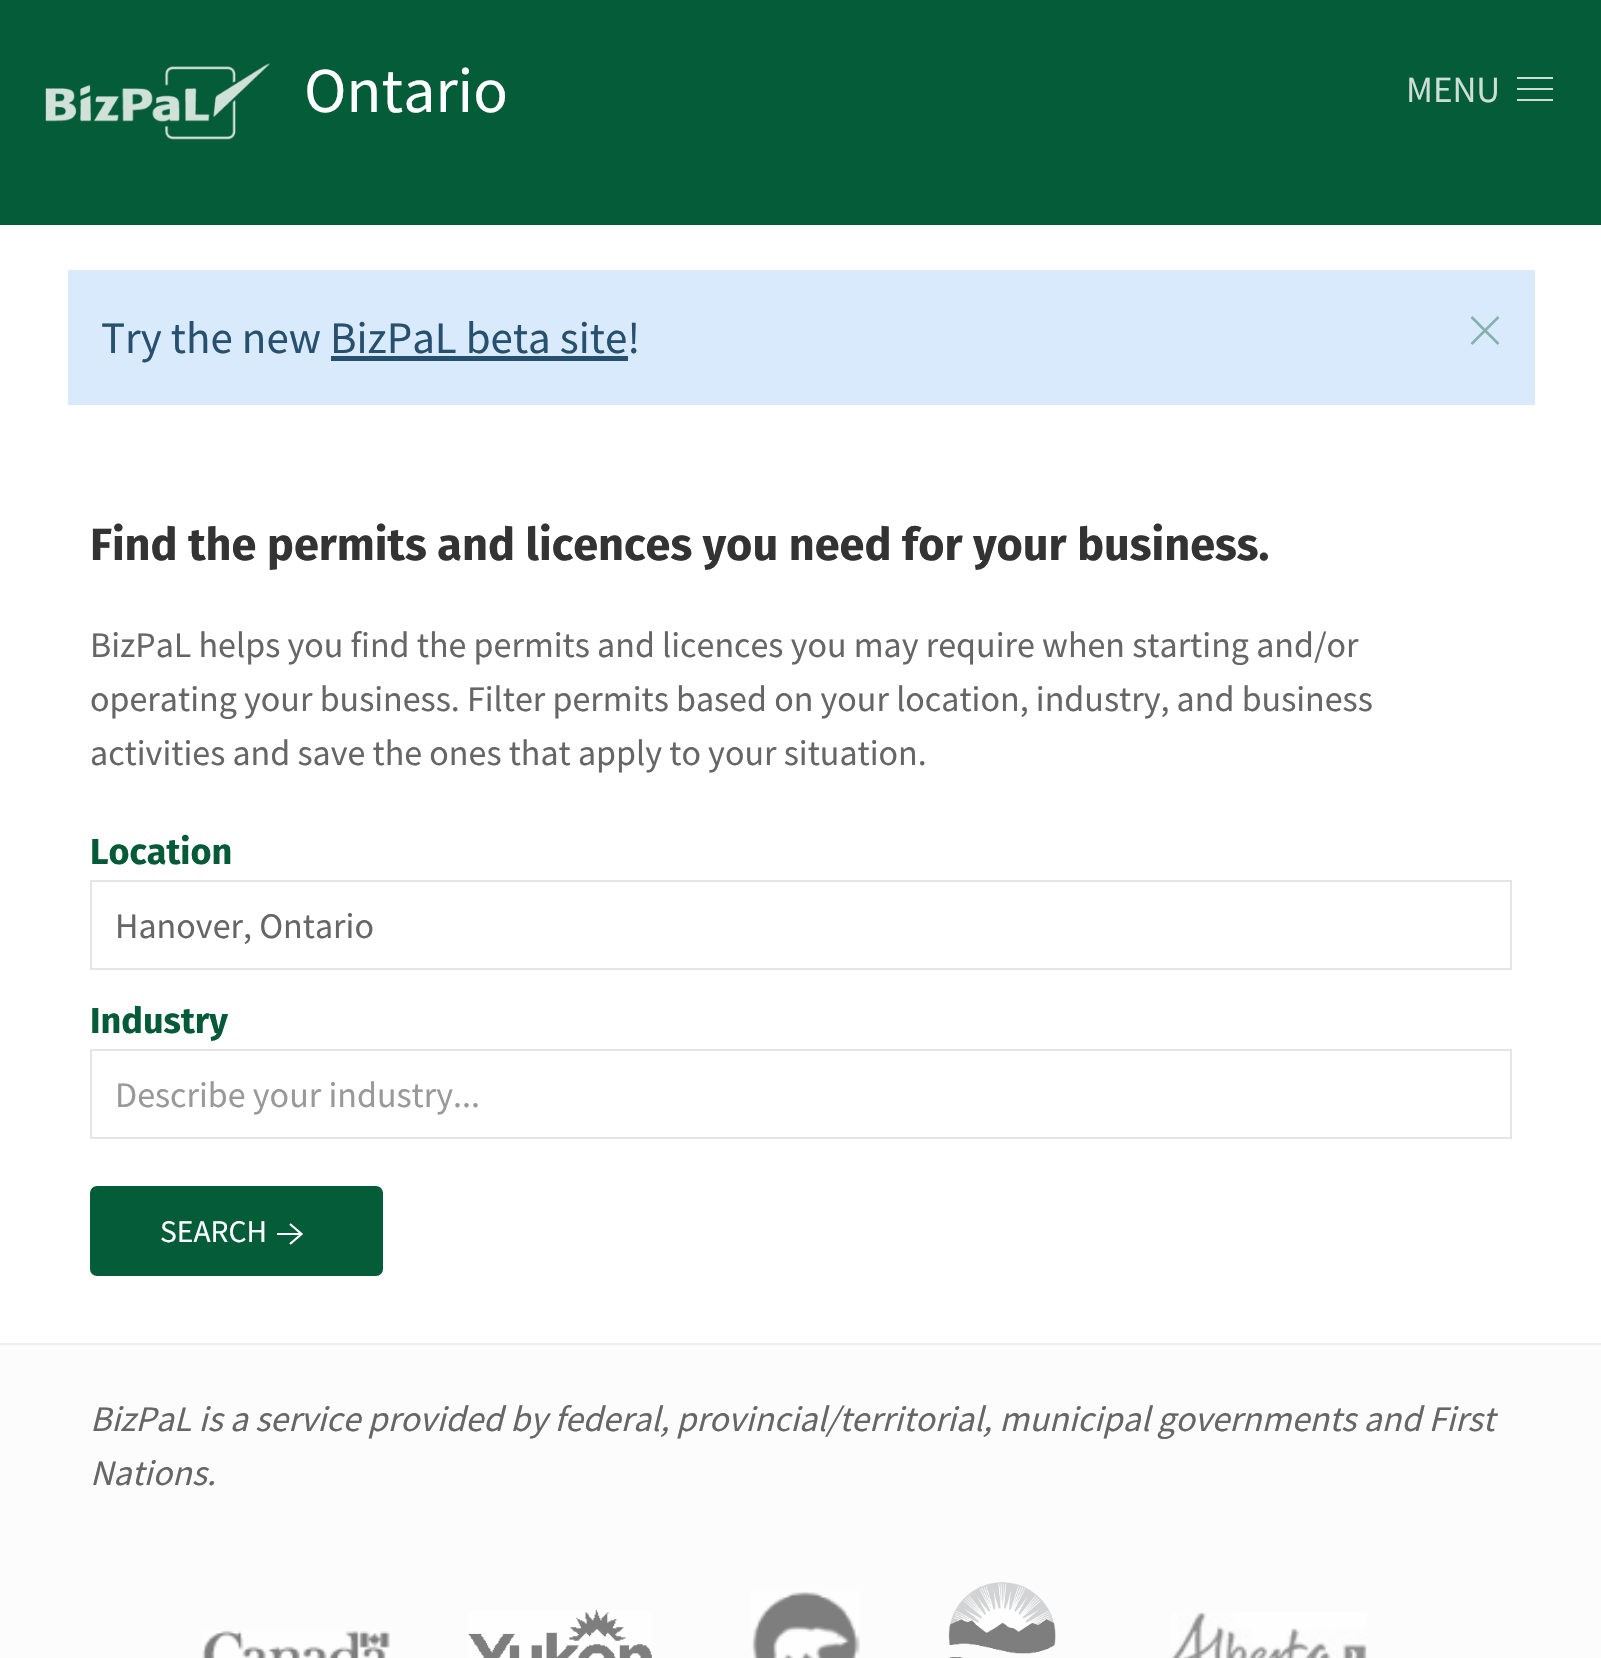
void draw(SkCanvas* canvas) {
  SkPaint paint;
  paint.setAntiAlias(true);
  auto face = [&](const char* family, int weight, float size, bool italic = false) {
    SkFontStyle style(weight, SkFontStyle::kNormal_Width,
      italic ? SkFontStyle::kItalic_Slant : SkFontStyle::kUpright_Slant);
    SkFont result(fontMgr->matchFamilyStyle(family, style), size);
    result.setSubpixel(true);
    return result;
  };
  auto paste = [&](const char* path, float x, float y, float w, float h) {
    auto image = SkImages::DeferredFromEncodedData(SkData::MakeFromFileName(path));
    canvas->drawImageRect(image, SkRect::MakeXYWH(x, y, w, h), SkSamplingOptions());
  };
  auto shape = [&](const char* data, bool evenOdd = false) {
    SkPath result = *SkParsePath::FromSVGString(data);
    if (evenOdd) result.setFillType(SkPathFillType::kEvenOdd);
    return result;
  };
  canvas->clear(0xffffffff);
  paint.setColor(0xff055c38);
  canvas->drawRect(SkRect::MakeXYWH(0, 0, 1601, 225), paint);
  paste("img/1.png", 45, 63, 225, 77);
  {
    const struct { float x, y, w, h; SkColor color; } items[] = {
      {1517, 77, 36, 2, 0xffcdded7},
      {1517, 88, 36, 2, 0xffcdded7},
      {1517, 99, 36, 2, 0xffcdded7},
      {68, 270, 1467, 135, 0xffd8eafc},
      {331, 356, 297, 5, 0xff274f6e},
    };
    for (auto [x, y, w, h, color] : items) {
      paint.setColor(color);
      canvas->drawRect(SkRect::MakeXYWH(x, y, w, h), paint);
    }
  }
  paint.setStroke(true);
  paint.setStrokeWidth(2.5f);
  paint.setColor(0xff84b1ae);
  canvas->drawPath(shape("M1471.5 317L1498.5 344M1498.5 317L1471.5 344"), paint);
  paint.setStrokeWidth(2);
  paint.setColor(0xffe5e5e5);
  canvas->drawRect(SkRect::MakeXYWH(91, 881, 1420, 88), paint);
  canvas->drawRect(SkRect::MakeXYWH(91, 1050, 1420, 88), paint);
  paint.setStroke(false);
  paint.setColor(0xff055c38);
  canvas->drawRoundRect(SkRect::MakeXYWH(90, 1186, 293, 90), 7, 7, paint);
  paint.setStroke(true);
  paint.setStrokeWidth(2.2f);
  paint.setColor(0xffffffff);
  canvas->drawPath(shape("M290 1224L301.5 1234L290 1244"), paint);
  paint.setStroke(false);
  {
    const struct { float x, y, w, h; SkColor color; } items[] = {
      {277, 1233, 25, 2, 0xffffffff},
      {0, 1345, 1601, 313, 0xfffcfcfc},
      {0, 1343, 1601, 2, 0xffeeeeee},
    };
    for (auto [x, y, w, h, color] : items) {
      paint.setColor(color);
      canvas->drawRect(SkRect::MakeXYWH(x, y, w, h), paint);
    }
  }
  paste("img/2.png", 202, 1630, 188, 28);
  paste("img/3.png", 468, 1610, 184, 48);
  paste("img/4.png", 751, 1591, 109, 67);
  paste("img/5.png", 948, 1582, 108, 76);
  paste("img/6.png", 1171, 1612, 196, 46);
  auto f0 = face("Source Sans Pro", 400, 64);
  paint.setColor(0xffffffff);
  canvas->drawString("Ontario", 304, 112, f0, paint);
  auto f1 = face("Source Sans Pro", 400, 37);
  paint.setColor(0xffcdded7);
  canvas->drawString("MENU", 1406, 102, f1, paint);
  auto f2 = face("Source Sans Pro", 400, 45);
  paint.setColor(0xff274f6e);
  canvas->drawString("Try the new BizPaL beta site!", 101, 353, f2, paint);
  auto f3 = face("Fira Sans", 700, 45);
  paint.setColor(0xff333333);
  canvas->drawString("Find the permits and licences you need for your business.", 90, 560, f3, paint);
  auto f4 = face("Source Sans Pro", 400, 36);
  paint.setColor(0xff666666);
  {
    const struct { const char* s; float x, y; } items[] = {
      {"BizPaL helps you find the permits and licences you may require when starting and/or", 90, 657},
      {"operating your business. Filter permits based on your location, industry, and business", 90, 711},
      {"activities and save the ones that apply to your situation.", 90, 765},
    };
    for (auto [s, x, y] : items) {
      canvas->drawString(s, x, y, f4, paint);
    }
  }
  auto f5 = face("Fira Sans", 700, 36);
  paint.setColor(0xff055a37);
  canvas->drawString("Location", 90, 864, f5, paint);
  paint.setColor(0xff666666);
  canvas->drawString("Hanover, Ontario", 115, 938, f4, paint);
  paint.setColor(0xff055a37);
  canvas->drawString("Industry", 90, 1033, f5, paint);
  paint.setColor(0xff999999);
  canvas->drawString("Describe your industry...", 115, 1107, f4, paint);
  auto f6 = face("Source Sans Pro", 400, 31.5f);
  paint.setColor(0xffffffff);
  canvas->drawString("SEARCH", 160, 1242, f6, paint);
  auto f7 = face("Source Sans Pro", 400, 36, true);
  paint.setColor(0xff666666);
  canvas->drawString("BizPaL is a service provided by federal, provincial/territorial, municipal governments and First", 90, 1431, f7, paint);
  canvas->drawString("Nations.", 90, 1485, f7, paint);
}
